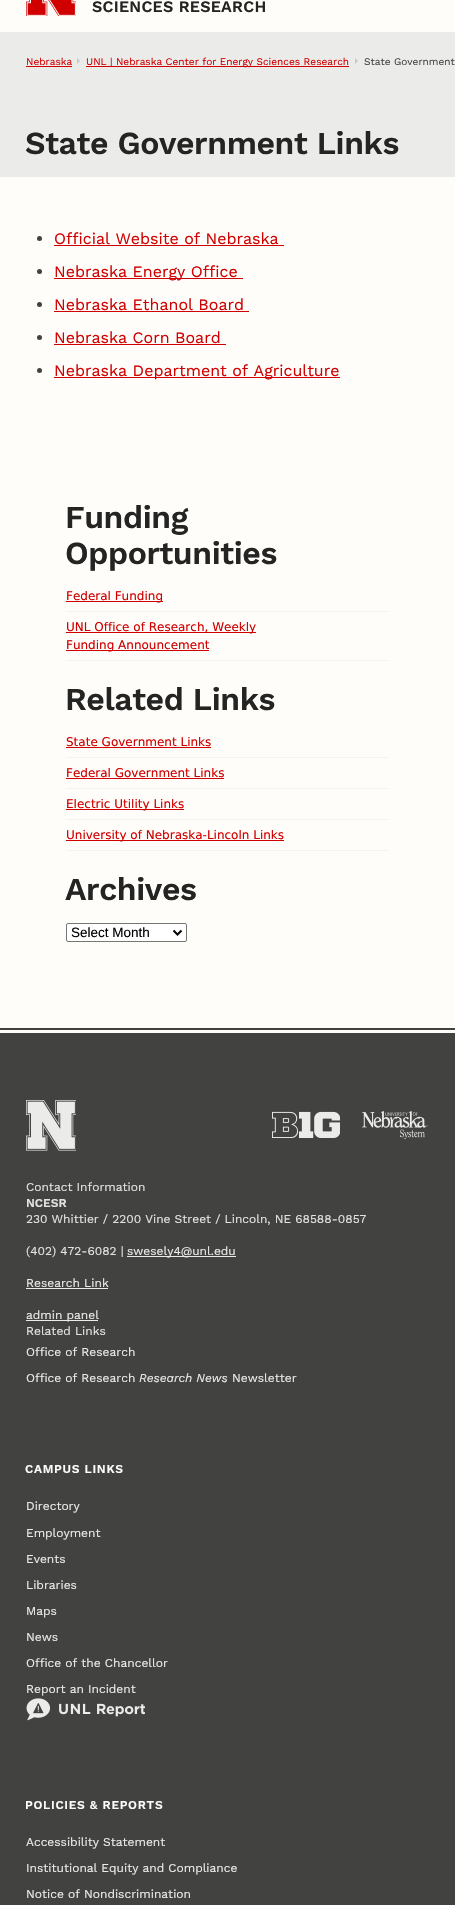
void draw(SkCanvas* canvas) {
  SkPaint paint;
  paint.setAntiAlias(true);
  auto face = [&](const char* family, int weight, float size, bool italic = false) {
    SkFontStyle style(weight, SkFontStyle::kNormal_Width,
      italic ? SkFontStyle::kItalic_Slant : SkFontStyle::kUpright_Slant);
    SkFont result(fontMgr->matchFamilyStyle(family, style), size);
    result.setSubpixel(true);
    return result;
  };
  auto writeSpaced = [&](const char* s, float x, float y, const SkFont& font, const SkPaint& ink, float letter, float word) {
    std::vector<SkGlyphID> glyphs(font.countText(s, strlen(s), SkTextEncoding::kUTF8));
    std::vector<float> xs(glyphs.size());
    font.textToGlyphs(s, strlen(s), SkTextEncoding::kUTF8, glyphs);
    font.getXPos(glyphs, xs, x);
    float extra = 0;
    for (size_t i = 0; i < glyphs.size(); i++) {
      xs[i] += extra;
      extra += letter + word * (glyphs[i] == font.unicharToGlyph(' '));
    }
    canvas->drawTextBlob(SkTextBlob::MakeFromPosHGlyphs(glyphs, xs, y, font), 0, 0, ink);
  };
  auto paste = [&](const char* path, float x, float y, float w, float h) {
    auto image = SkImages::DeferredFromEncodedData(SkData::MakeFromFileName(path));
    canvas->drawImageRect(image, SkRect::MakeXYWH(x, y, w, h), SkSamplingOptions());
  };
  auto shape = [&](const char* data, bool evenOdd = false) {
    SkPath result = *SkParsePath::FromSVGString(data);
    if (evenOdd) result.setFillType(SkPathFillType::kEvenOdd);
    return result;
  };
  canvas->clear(0xfffefdfa);
  paste("img/1.png", 26, 0, 50, 16);
  paint.setColor(0xffebebea);
  canvas->drawRect(SkRect::MakeXYWH(0, 32, 455, 145), paint);
  paint.setColor(0xffd00000);
  canvas->drawRect(SkRect::MakeXYWH(26, 66, 46, 1), paint);
  paint.setColor(0xffc7c8ca);
  canvas->drawPath(shape("M77 64V58L80 61Z"), paint);
  paint.setColor(0xffd00000);
  canvas->drawRect(SkRect::MakeXYWH(86, 66, 263, 1), paint);
  paint.setColor(0xffc7c8ca);
  canvas->drawPath(shape("M355 64V58L358 61Z"), paint);
  paint.setColor(0xff424240);
  canvas->drawCircle(39.5f, 238.5f, 2.5f, paint);
  paint.setColor(0xffd00000);
  canvas->drawRect(SkRect::MakeXYWH(54, 245, 230, 1), paint);
  paint.setColor(0xff424240);
  canvas->drawCircle(39.5f, 271.5f, 2.5f, paint);
  paint.setColor(0xffd00000);
  canvas->drawRect(SkRect::MakeXYWH(54, 278, 189, 1), paint);
  paint.setColor(0xff424240);
  canvas->drawCircle(39.5f, 304.5f, 2.5f, paint);
  paint.setColor(0xffd00000);
  canvas->drawRect(SkRect::MakeXYWH(54, 311, 195, 1), paint);
  paint.setColor(0xff424240);
  canvas->drawCircle(39.5f, 337.5f, 2.5f, paint);
  paint.setColor(0xffd00000);
  canvas->drawRect(SkRect::MakeXYWH(54, 344, 172, 1), paint);
  paint.setColor(0xff424240);
  canvas->drawCircle(39.5f, 370.5f, 2.5f, paint);
  {
    const struct { float x, y, w, h; SkColor color; } items[] = {
      {54, 377, 286, 1, 0xffd00000},
      {66, 611, 323, 1, 0xfff4f3ef},
      {66, 601, 97, 1, 0xffd00000},
      {66, 660, 323, 1, 0xfff4f3ef},
      {66, 632, 190, 1, 0xffd00000},
      {66, 650, 143, 1, 0xffd00000},
      {66, 757, 323, 1, 0xfff4f3ef},
      {66, 747, 145, 1, 0xffd00000},
      {66, 788, 323, 1, 0xfff4f3ef},
      {66, 778, 158, 1, 0xffd00000},
      {66, 819, 323, 1, 0xfff4f3ef},
      {66, 809, 118, 1, 0xffd00000},
      {66, 850, 323, 1, 0xfff4f3ef},
      {66, 840, 218, 1, 0xffd00000},
    };
    for (auto [x, y, w, h, color] : items) {
      paint.setColor(color);
      canvas->drawRect(SkRect::MakeXYWH(x, y, w, h), paint);
    }
  }
  paint.setColor(0xffffffff);
  canvas->drawRoundRect(SkRect::MakeXYWH(66.5f, 923.5f, 120, 18), 1.5f, 1.5f, paint);
  paint.setStroke(true);
  paint.setStrokeWidth(1);
  paint.setColor(0xff767676);
  canvas->drawRoundRect(SkRect::MakeXYWH(66.5f, 923.5f, 120, 18), 1.5f, 1.5f, paint);
  paint.setStrokeWidth(2);
  paint.setColor(0xff000000);
  canvas->drawPath(shape("M173.5 930.5L177.5 934.5L181.5 930.5"), paint);
  paint.setStroke(false);
  paint.setColor(0xff424240);
  canvas->drawRect(SkRect::MakeXYWH(0, 1033, 455, 872), paint);
  canvas->drawRect(SkRect::MakeXYWH(0, 1028, 455, 2), paint);
  paste("img/2.png", 26, 1100, 50, 51);
  paste("img/3.png", 272, 1111, 68, 27);
  paste("img/4.png", 362, 1111, 66, 28);
  {
    const struct { float x, y, w, h; SkColor color; } items[] = {
      {127, 1256, 109, 1, 0xffebebea},
      {26, 1288, 82, 1, 0xffebebea},
      {26, 1320, 72, 1, 0xffebebea},
    };
    for (auto [x, y, w, h, color] : items) {
      paint.setColor(color);
      canvas->drawRect(SkRect::MakeXYWH(x, y, w, h), paint);
    }
  }
  paste("img/5.png", 26, 1698, 119, 23);
  auto f0 = face("Work Sans", 600, 16);
  paint.setColor(0xff242423);
  writeSpaced("SCIENCES RESEARCH", 92, 12, f0, paint, 0.25f, 0);
  auto f1 = face("Work Sans", 400, 10.1f);
  paint.setColor(0xffd00000);
  canvas->drawString("Nebraska", 26, 65, f1, paint);
  canvas->drawString("UNL | Nebraska Center for Energy Sciences Research", 86, 65, f1, paint);
  paint.setColor(0xff424240);
  canvas->drawString("State Government", 364, 65, f1, paint);
  auto f2 = face("Work Sans", 600, 32);
  paint.setColor(0xff242423);
  writeSpaced("State Government Links", 25, 154, f2, paint, -0.4f, 0);
  auto f3 = face("Work Sans", 400, 16);
  paint.setColor(0xffd00000);
  {
    const struct { const char* s; float x, y; } items[] = {
      {"Official Website of Nebraska", 54, 244},
      {"Nebraska Energy Office", 54, 277},
      {"Nebraska Ethanol Board", 54, 310},
      {"Nebraska Corn Board", 54, 343},
      {"Nebraska Department of Agriculture", 54, 376},
    };
    for (auto [s, x, y] : items) {
      canvas->drawString(s, x, y, f3, paint);
    }
  }
  paint.setColor(0xff242423);
  writeSpaced("Funding", 65, 528, f2, paint, -0.4f, 0);
  writeSpaced("Opportunities", 65, 564, f2, paint, -0.4f, 0);
  auto f4 = face("DejaVu Sans", 400, 12);
  paint.setColor(0xffd00000);
  {
    const struct { const char* s; float x, y; } items[] = {
      {"Federal Funding", 66, 600},
      {"UNL Office of Research, Weekly", 66, 631},
      {"Funding Announcement", 66, 649},
    };
    for (auto [s, x, y] : items) {
      canvas->drawString(s, x, y, f4, paint);
    }
  }
  paint.setColor(0xff242423);
  writeSpaced("Related Links", 65, 710, f2, paint, -0.4f, 0);
  paint.setColor(0xffd00000);
  {
    const struct { const char* s; float x, y; } items[] = {
      {"State Government Links", 66, 746},
      {"Federal Government Links", 66, 777},
      {"Electric Utility Links", 66, 808},
      {"University of Nebraska-Lincoln Links", 66, 839},
    };
    for (auto [s, x, y] : items) {
      canvas->drawString(s, x, y, f4, paint);
    }
  }
  paint.setColor(0xff242423);
  writeSpaced("Archives", 65, 900, f2, paint, -0.4f, 0);
  auto f5 = face("Liberation Sans", 400, 13.5f);
  paint.setColor(0xff000000);
  canvas->drawString("Select Month", 71, 937, f5, paint);
  auto f6 = face("Work Sans", 400, 12);
  paint.setColor(0xffe3e3e2);
  canvas->drawString("Contact Information", 26, 1191, f6, paint);
  auto f7 = face("Work Sans", 600, 12);
  canvas->drawString("NCESR", 26, 1207, f7, paint);
  canvas->drawString("230 Whittier / 2200 Vine Street / Lincoln, NE 68588-0857", 26, 1223, f6, paint);
  canvas->drawString("(402) 472-6082 |", 26, 1255, f6, paint);
  paint.setColor(0xffebebea);
  {
    const struct { const char* s; float x, y; } items[] = {
      {"swesely4@unl.edu", 127, 1255},
      {"Research Link", 26, 1287},
      {"admin panel", 26, 1319},
    };
    for (auto [s, x, y] : items) {
      canvas->drawString(s, x, y, f6, paint);
    }
  }
  paint.setColor(0xffe3e3e2);
  canvas->drawString("Related Links", 26, 1335, f6, paint);
  paint.setColor(0xffebebea);
  canvas->drawString("Office of Research", 26, 1356, f6, paint);
  canvas->drawString("Office of Research", 26, 1382, f6, paint);
  auto f8 = face("Work Sans", 400, 12, true);
  canvas->drawString("Research News", 139, 1382, f8, paint);
  canvas->drawString("Newsletter", 232, 1382, f6, paint);
  paint.setColor(0xfffefdfa);
  writeSpaced("CAMPUS LINKS", 25, 1473, f7, paint, 0.7f, 0);
  paint.setColor(0xffebebea);
  {
    const struct { const char* s; float x, y; } items[] = {
      {"Directory", 26, 1510},
      {"Employment", 26, 1537},
      {"Events", 26, 1563},
      {"Libraries", 26, 1589},
      {"Maps", 26, 1615},
      {"News", 26, 1641},
      {"Office of the Chancellor", 26, 1667},
      {"Report an Incident", 26, 1693},
    };
    for (auto [s, x, y] : items) {
      canvas->drawString(s, x, y, f6, paint);
    }
  }
  paint.setColor(0xfffefdfa);
  writeSpaced("POLICIES & REPORTS", 25, 1809, f7, paint, 0.7f, 0);
  paint.setColor(0xffebebea);
  {
    const struct { const char* s; float x, y; } items[] = {
      {"Accessibility Statement", 26, 1846},
      {"Institutional Equity and Compliance", 26, 1872},
      {"Notice of Nondiscrimination", 26, 1898},
    };
    for (auto [s, x, y] : items) {
      canvas->drawString(s, x, y, f6, paint);
    }
  }
}
